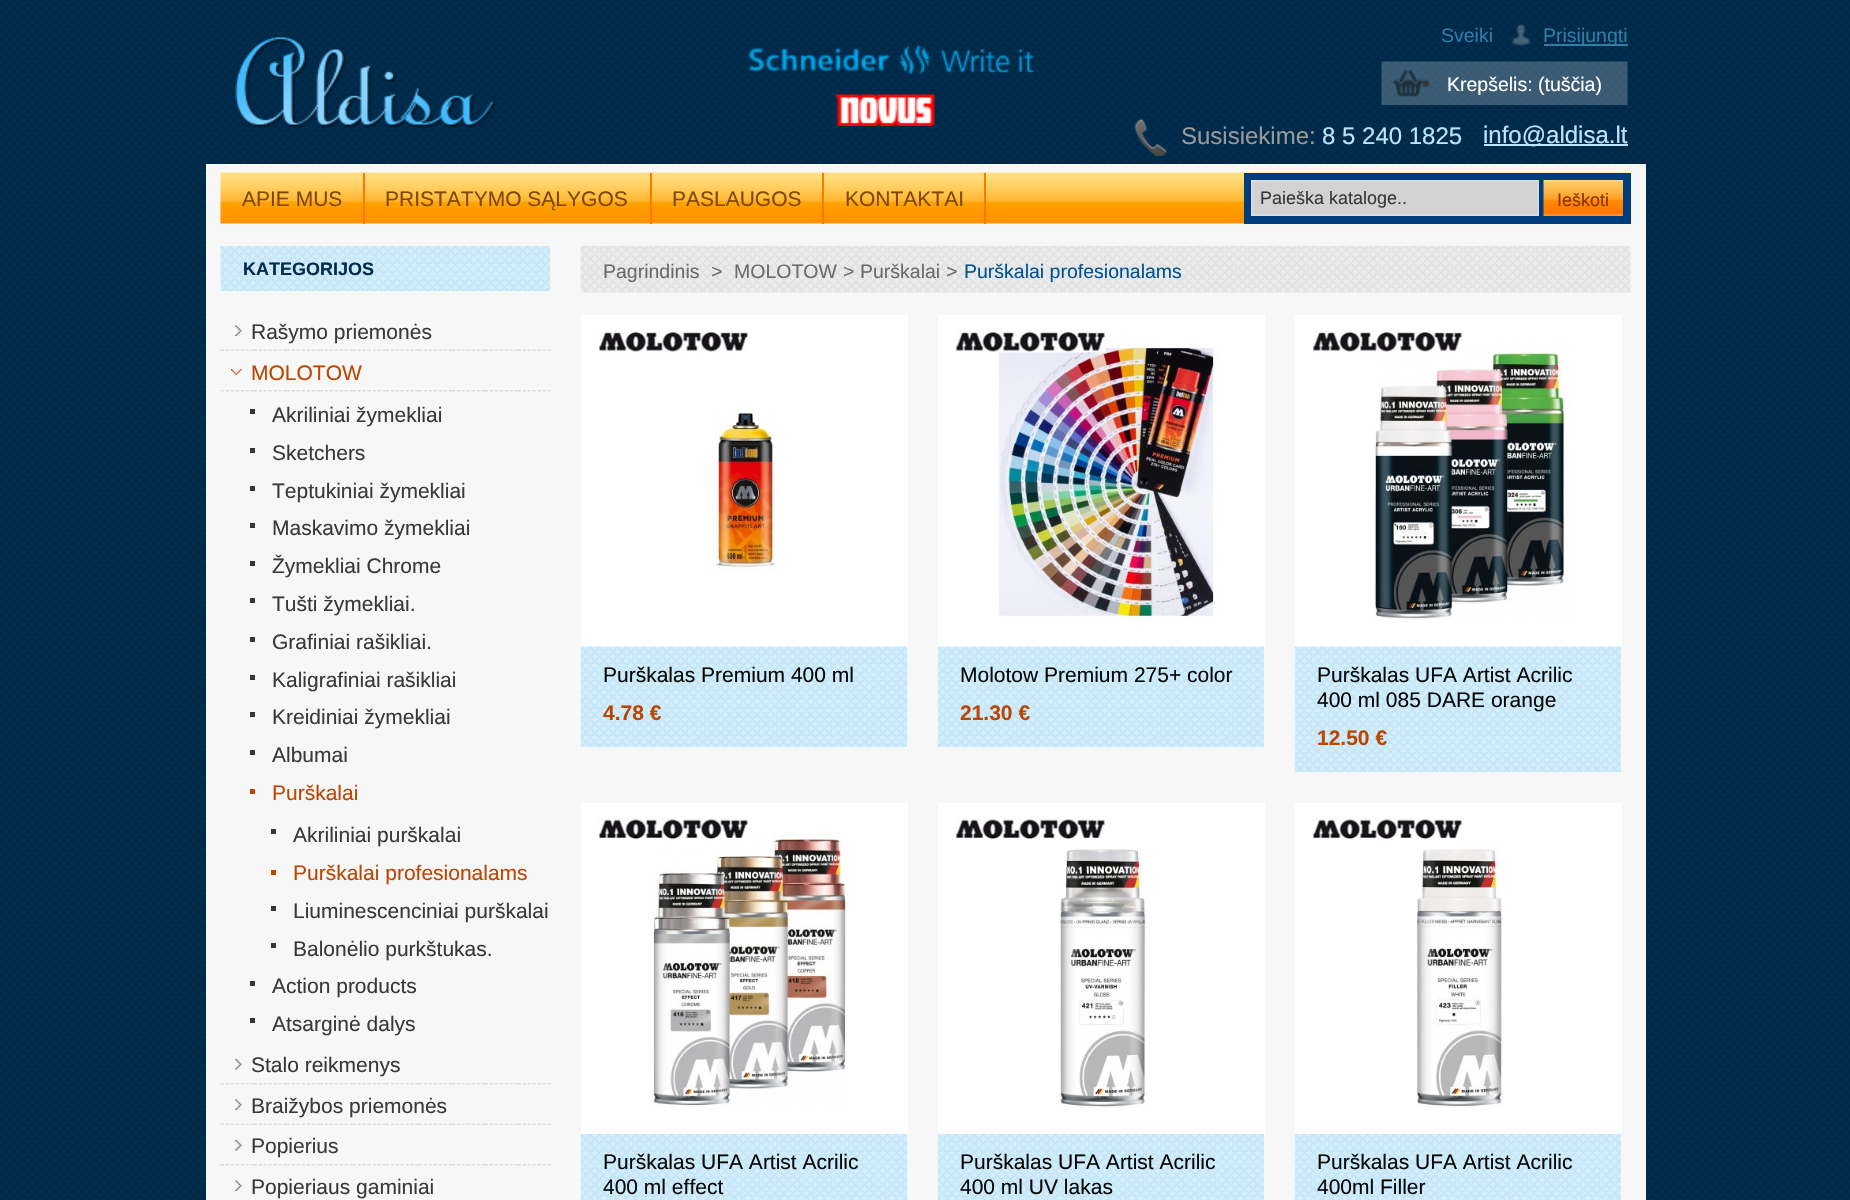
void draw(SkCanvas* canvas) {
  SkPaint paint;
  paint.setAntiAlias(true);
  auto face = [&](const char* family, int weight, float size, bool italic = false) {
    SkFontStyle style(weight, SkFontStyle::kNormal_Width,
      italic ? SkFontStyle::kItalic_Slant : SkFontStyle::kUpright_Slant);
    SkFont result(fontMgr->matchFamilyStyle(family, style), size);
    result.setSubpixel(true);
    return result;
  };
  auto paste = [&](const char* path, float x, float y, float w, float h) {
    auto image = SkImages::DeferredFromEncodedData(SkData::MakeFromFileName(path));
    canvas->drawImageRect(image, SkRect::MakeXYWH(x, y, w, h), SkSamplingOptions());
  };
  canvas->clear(0xffffffff);
  paste("img/1.png", 0, 0, 1850, 1200);
  paste("img/2.png", 235, 37, 261, 91);
  paste("img/3.png", 748, 44, 286, 31);
  paste("img/4.png", 835, 94, 100, 32);
  paste("img/5.png", 1510, 24, 22, 23);
  paint.setColor(0xff317da4);
  canvas->drawRect(SkRect::MakeXYWH(1544, 44, 84, 2), paint);
  paste("img/6.png", 1381, 61, 247, 44);
  paste("img/7.png", 1422, 79, 8, 8);
  paste("img/8.png", 1134, 118, 34, 38);
  paint.setColor(0xffbae6ff);
  canvas->drawRect(SkRect::MakeXYWH(1484, 144, 144, 2), paint);
  paint.setColor(0xfff7f7f7);
  canvas->drawRect(SkRect::MakeXYWH(206, 164, 1440, 1036), paint);
  paste("img/10.png", 220, 172, 1411, 52);
  paint.setColor(0xff003d7c);
  canvas->drawRect(SkRect::MakeXYWH(1244, 173, 387, 51), paint);
  paint.setColor(0xffd2d2d2);
  canvas->drawRect(SkRect::MakeXYWH(1252, 181, 286, 34), paint);
  paint.setStroke(true);
  paint.setStrokeWidth(2);
  paint.setColor(0xffdedbdb);
  canvas->drawRect(SkRect::MakeXYWH(1252, 181, 286, 34), paint);
  paste("img/9.png", 1543, 180, 80, 36);
  paint.setStroke(false);
  {
    const struct { float x, y, w, h; SkColor color; } items[] = {
      {363, 173, 2, 51, 0xffff7900},
      {650, 173, 2, 51, 0xffff7900},
      {822, 173, 2, 51, 0xffff7900},
      {984, 173, 2, 51, 0xffff7900},
      {550, 246, 1, 45, 0xfffeffff},
    };
    for (auto [x, y, w, h, color] : items) {
      paint.setColor(color);
      canvas->drawRect(SkRect::MakeXYWH(x, y, w, h), paint);
    }
  }
  paste("img/11.png", 220, 246, 331, 45);
  paste("img/12.png", 235, 325, 7, 11);
  paste("img/13.png", 220, 349, 331, 2);
  paste("img/14.png", 231, 369, 11, 6);
  paste("img/15.png", 220, 390, 331, 2);
  {
    const struct { float x, y, w, h; SkColor color; } items[] = {
      {250, 409, 5, 5, 0xff363636},
      {250, 448, 5, 5, 0xff363636},
      {250, 486, 5, 5, 0xff363636},
      {250, 523, 5, 5, 0xff363636},
      {250, 561, 5, 5, 0xff363636},
      {250, 598, 5, 5, 0xff363636},
      {250, 637, 5, 5, 0xff363636},
      {250, 675, 5, 5, 0xff363636},
      {250, 712, 5, 5, 0xff363636},
      {250, 750, 5, 5, 0xff363636},
      {250, 789, 5, 5, 0xffba4600},
      {271, 829, 5, 5, 0xff363636},
      {271, 870, 5, 5, 0xffba4600},
      {271, 906, 5, 5, 0xff363636},
      {271, 943, 5, 5, 0xff363636},
      {250, 981, 5, 5, 0xff363636},
      {250, 1018, 5, 5, 0xff363636},
    };
    for (auto [x, y, w, h, color] : items) {
      paint.setColor(color);
      canvas->drawRect(SkRect::MakeXYWH(x, y, w, h), paint);
    }
  }
  paste("img/16.png", 235, 1059, 7, 11);
  paste("img/15.png", 220, 1083, 331, 2);
  paste("img/12.png", 235, 1099, 7, 11);
  paste("img/13.png", 220, 1123, 331, 2);
  paste("img/16.png", 235, 1140, 7, 11);
  paste("img/17.png", 220, 1164, 331, 2);
  paste("img/12.png", 235, 1180, 7, 11);
  paste("img/18.png", 580, 246, 1051, 47);
  paint.setColor(0xffffffff);
  canvas->drawRect(SkRect::MakeXYWH(581, 315, 327, 432), paint);
  paste("img/19.png", 598, 330, 151, 23);
  paste("img/20.png", 709, 408, 67, 163);
  paste("img/21.png", 580, 646, 328, 101);
  canvas->drawRect(SkRect::MakeXYWH(938, 315, 327, 432), paint);
  paste("img/23.png", 998, 343, 220, 279);
  paste("img/22.png", 955, 330, 151, 23);
  paste("img/24.png", 937, 646, 328, 101);
  canvas->drawRect(SkRect::MakeXYWH(1295, 315, 327, 458), paint);
  paste("img/26.png", 1373, 343, 199, 278);
  paste("img/25.png", 1312, 330, 151, 23);
  paste("img/27.png", 1294, 646, 328, 127);
  canvas->drawRect(SkRect::MakeXYWH(581, 803, 327, 397), paint);
  paste("img/29.png", 652, 832, 196, 277);
  paste("img/28.png", 598, 817, 151, 23);
  paste("img/30.png", 580, 1134, 328, 66);
  canvas->drawRect(SkRect::MakeXYWH(938, 803, 327, 397), paint);
  paste("img/31.png", 955, 817, 151, 23);
  paste("img/32.png", 1060, 849, 87, 260);
  paste("img/33.png", 937, 1134, 328, 66);
  canvas->drawRect(SkRect::MakeXYWH(1295, 803, 327, 397), paint);
  paste("img/31.png", 1312, 817, 151, 23);
  paste("img/34.png", 1417, 848, 87, 259);
  paste("img/35.png", 1294, 1134, 328, 66);
  auto f0 = face("Liberation Sans", 400, 19.5f);
  paint.setColor(0xff317da4);
  canvas->drawString("Sveiki", 1441, 42, f0, paint);
  canvas->drawString("Prisijungti", 1543, 42, f0, paint);
  paint.setColor(0xffffffff);
  canvas->drawString("Krepšelis: (tuščia)", 1447, 91, f0, paint);
  auto f1 = face("Liberation Sans", 400, 24);
  paint.setColor(0xff999999);
  canvas->drawString("Susisiekime:", 1181, 144, f1, paint);
  paint.setColor(0xffbae6ff);
  canvas->drawString("8 5 240 1825", 1322, 144, f1, paint);
  canvas->drawString("info@aldisa.lt", 1483, 143, f1, paint);
  auto f2 = face("Liberation Sans", 400, 18);
  paint.setColor(0xff393939);
  canvas->drawString("Paieška kataloge..", 1260, 204, f2, paint);
  paint.setColor(0xff873300);
  canvas->drawString("Ieškoti", 1557, 206, f2, paint);
  auto f3 = face("Liberation Sans", 400, 21);
  paint.setColor(0xff814600);
  {
    const struct { const char* s; float x, y; } items[] = {
      {"APIE MUS", 242, 206},
      {"PRISTATYMO SĄLYGOS", 385, 206},
      {"PASLAUGOS", 672, 206},
      {"KONTAKTAI", 845, 206},
    };
    for (auto [s, x, y] : items) {
      canvas->drawString(s, x, y, f3, paint);
    }
  }
  auto f4 = face("Liberation Sans", 700, 18);
  paint.setColor(0xff002b4b);
  canvas->drawString("KATEGORIJOS", 243, 275, f4, paint);
  paint.setColor(0xff393939);
  canvas->drawString("Rašymo priemonės", 251, 339, f3, paint);
  paint.setColor(0xffba4600);
  canvas->drawString("MOLOTOW", 251, 380, f3, paint);
  paint.setColor(0xff393939);
  {
    const struct { const char* s; float x, y; } items[] = {
      {"Akriliniai žymekliai", 272, 422},
      {"Sketchers", 272, 460},
      {"Teptukiniai žymekliai", 272, 498},
      {"Maskavimo žymekliai", 272, 535},
      {"Žymekliai Chrome", 272, 573},
      {"Tušti žymekliai.", 272, 611},
      {"Grafiniai rašikliai.", 272, 649},
      {"Kaligrafiniai rašikliai", 272, 687},
      {"Kreidiniai žymekliai", 272, 724},
      {"Albumai", 272, 762},
    };
    for (auto [s, x, y] : items) {
      canvas->drawString(s, x, y, f3, paint);
    }
  }
  paint.setColor(0xffba4600);
  canvas->drawString("Purškalai", 272, 800, f3, paint);
  paint.setColor(0xff393939);
  canvas->drawString("Akriliniai purškalai", 293, 842, f3, paint);
  paint.setColor(0xffba4600);
  canvas->drawString("Purškalai profesionalams", 293, 880, f3, paint);
  paint.setColor(0xff393939);
  {
    const struct { const char* s; float x, y; } items[] = {
      {"Liuminescenciniai purškalai", 293, 918},
      {"Balonėlio purkštukas.", 293, 956},
      {"Action products", 272, 993},
      {"Atsarginė dalys", 272, 1031},
      {"Stalo reikmenys", 251, 1072},
      {"Braižybos priemonės", 251, 1113},
      {"Popierius", 251, 1153},
      {"Popieriaus gaminiai", 251, 1194},
    };
    for (auto [s, x, y] : items) {
      canvas->drawString(s, x, y, f3, paint);
    }
  }
  paint.setColor(0xff6a6a6a);
  {
    const struct { const char* s; float x, y; } items[] = {
      {"Pagrindinis", 603, 278},
      {">", 711, 278},
      {"MOLOTOW", 734, 278},
      {">", 843, 278},
      {"Purškalai", 860, 278},
      {">", 946, 278},
    };
    for (auto [s, x, y] : items) {
      canvas->drawString(s, x, y, f0, paint);
    }
  }
  paint.setColor(0xff005291);
  canvas->drawString("Purškalai profesionalams", 964, 278, f0, paint);
  paint.setColor(0xff060806);
  canvas->drawString("Purškalas Premium 400 ml", 603, 682, f3, paint);
  auto f5 = face("Liberation Sans", 700, 21);
  paint.setColor(0xffba4600);
  canvas->drawString("4.78 €", 603, 720, f5, paint);
  paint.setColor(0xff060806);
  canvas->drawString("Molotow Premium 275+ color", 960, 682, f3, paint);
  paint.setColor(0xffba4600);
  canvas->drawString("21.30 €", 960, 720, f5, paint);
  paint.setColor(0xff060806);
  canvas->drawString("Purškalas UFA Artist Acrilic", 1317, 682, f3, paint);
  canvas->drawString("400 ml 085 DARE orange", 1317, 707, f3, paint);
  paint.setColor(0xffba4600);
  canvas->drawString("12.50 €", 1317, 745, f5, paint);
  paint.setColor(0xff060806);
  {
    const struct { const char* s; float x, y; } items[] = {
      {"Purškalas UFA Artist Acrilic", 603, 1169},
      {"400 ml effect", 603, 1194},
      {"Purškalas UFA Artist Acrilic", 960, 1169},
      {"400 ml UV lakas", 960, 1194},
      {"Purškalas UFA Artist Acrilic", 1317, 1169},
      {"400ml Filler", 1317, 1194},
    };
    for (auto [s, x, y] : items) {
      canvas->drawString(s, x, y, f3, paint);
    }
  }
}
